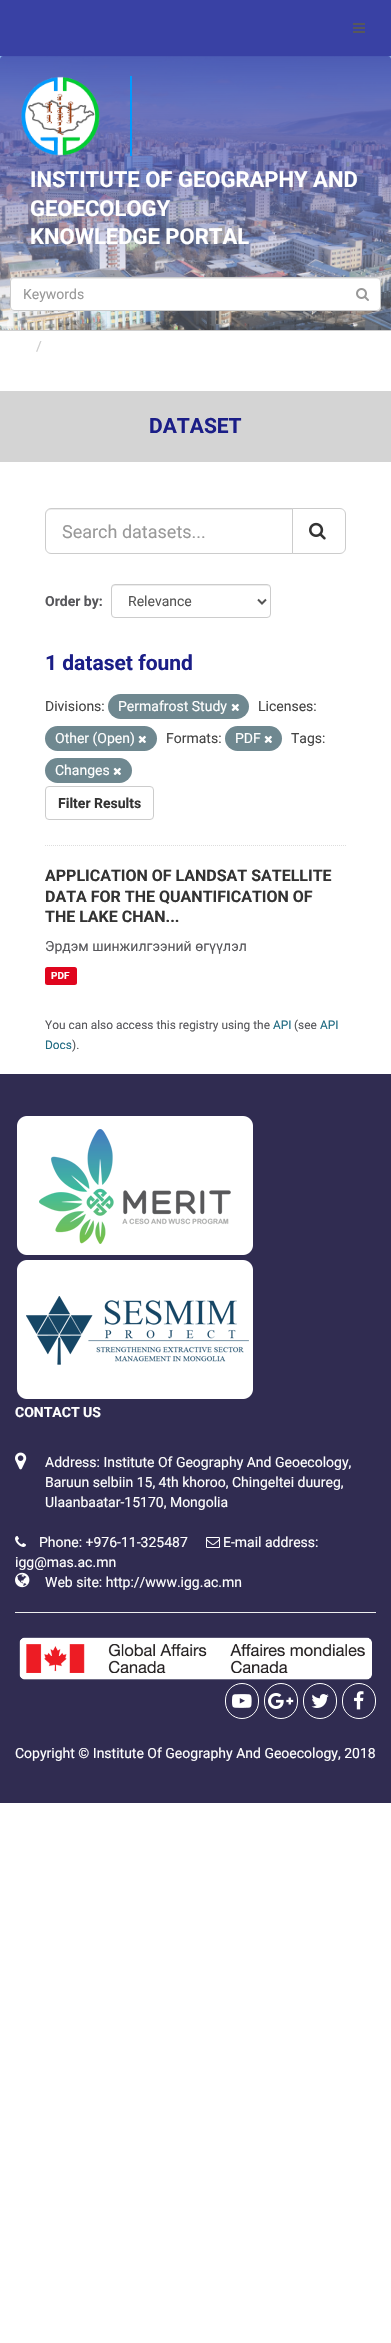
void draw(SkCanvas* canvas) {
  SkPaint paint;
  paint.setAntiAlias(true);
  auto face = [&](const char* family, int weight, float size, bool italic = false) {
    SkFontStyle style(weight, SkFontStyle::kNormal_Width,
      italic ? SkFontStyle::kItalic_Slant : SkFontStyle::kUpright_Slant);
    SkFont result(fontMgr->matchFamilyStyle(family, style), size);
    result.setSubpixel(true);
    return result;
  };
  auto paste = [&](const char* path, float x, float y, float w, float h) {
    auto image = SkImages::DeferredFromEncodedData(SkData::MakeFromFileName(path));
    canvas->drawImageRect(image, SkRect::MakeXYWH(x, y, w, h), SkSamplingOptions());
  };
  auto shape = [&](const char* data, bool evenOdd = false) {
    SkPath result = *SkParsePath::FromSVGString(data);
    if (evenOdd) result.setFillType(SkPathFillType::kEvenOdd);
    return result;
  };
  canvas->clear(0xffffffff);
  paint.setColor(0xff3941a4);
  canvas->drawRect(SkRect::MakeXYWH(0, 0, 391, 56), paint);
  paste("img/1.png", 353, 23, 12, 10);
  paste("img/2.png", 0, 56, 391, 274);
  paint.setColor(0xff019bff);
  canvas->drawRect(SkRect::MakeXYWH(130, 76, 2, 80), paint);
  paste("img/3.png", 21, 76, 79, 80);
  paint.setColor(0xffffffff);
  canvas->drawRoundRect(SkRect::MakeXYWH(10, 277, 371, 34), 4, 4, paint);
  paint.setColor(0xffececec);
  canvas->drawPath(shape("M14 279H377C379 279 380 280 380 282C380 280 379 278 377 278H14L12 279L11 282C11 280 12 279 14 279Z"), paint);
  paint.setStroke(true);
  paint.setStrokeWidth(1);
  paint.setColor(0xffcccccc);
  canvas->drawRoundRect(SkRect::MakeXYWH(10.5f, 277.5f, 370, 33), 3.5f, 3.5f, paint);
  paste("img/4.png", 356, 288, 13, 13);
  paint.setStroke(false);
  {
    const struct { float x, y, w, h; SkColor color; } items[] = {
      {0, 326, 391, 4, 0x08000000},
      {0, 330, 391, 1, 0xffd0d0d0},
      {0, 391, 391, 71, 0xffd4d4d4},
    };
    for (auto [x, y, w, h, color] : items) {
      paint.setColor(color);
      canvas->drawRect(SkRect::MakeXYWH(x, y, w, h), paint);
    }
  }
  paint.setStroke(true);
  paint.setColor(0xffdddddd);
  paint.setPathEffect(SkDashPathEffect::Make({{1, 1}}, 0));
  canvas->drawPath(shape("M45 845.5H346"), paint);
  paint.setPathEffect(nullptr);
  paint.setStroke(false);
  paint.setColor(0xffececec);
  canvas->drawPath(shape("M51 510H292V509H51C48 509 46 511 46 514V515C46 512 48 510 51 510Z"), paint);
  paint.setStroke(true);
  paint.setColor(0xffcccccc);
  canvas->drawPath(shape("M51 508.5H292.5V553.5H51C48 553.5 45.5 551 45.5 548V514C45.5 511 48 508.5 51 508.5Z"), paint);
  paint.setStroke(false);
  paint.setColor(0xffffffff);
  canvas->drawPath(shape("M292.5 508.5H340C343 508.5 345.5 511 345.5 514V548C345.5 551 343 553.5 340 553.5H292.5Z"), paint);
  paint.setStroke(true);
  paint.setColor(0xffcccccc);
  canvas->drawPath(shape("M292.5 508.5H340C343 508.5 345.5 511 345.5 514V548C345.5 551 343 553.5 340 553.5H292.5Z"), paint);
  paste("img/5.png", 309, 522, 17, 18);
  paint.setStroke(false);
  paint.setColor(0xffececec);
  canvas->drawPath(shape("M115 586H267C269 586 270 587 270 589C270 587 269 585 267 585H114C112 585 112 587 112 589C112 587 113 586 115 586Z"), paint);
  paint.setStroke(true);
  paint.setColor(0xffcccccc);
  canvas->drawRoundRect(SkRect::MakeXYWH(111.5f, 584.5f, 159, 33), 3.5f, 3.5f, paint);
  paint.setStrokeWidth(2);
  paint.setColor(0xff555555);
  canvas->drawPath(shape("M258 599.5L262 603.5L266 599.5"), paint);
  paint.setStroke(false);
  paint.setColor(0xff6f8890);
  canvas->drawRoundRect(SkRect::MakeXYWH(108, 694, 141, 25), 12.5f, 12.5f, paint);
  paste("img/6.png", 231, 703, 8, 8);
  canvas->drawRoundRect(SkRect::MakeXYWH(45, 726, 112, 25), 12.5f, 12.5f, paint);
  paste("img/6.png", 138, 735, 8, 8);
  canvas->drawRoundRect(SkRect::MakeXYWH(225, 726, 57, 25), 12.5f, 12.5f, paint);
  paste("img/6.png", 264, 735, 8, 8);
  canvas->drawRoundRect(SkRect::MakeXYWH(45, 758, 87, 25), 12.5f, 12.5f, paint);
  paste("img/6.png", 113, 767, 8, 8);
  paint.setStroke(true);
  paint.setStrokeWidth(1);
  paint.setColor(0xffcccccc);
  canvas->drawRoundRect(SkRect::MakeXYWH(45.5f, 786.5f, 108, 33), 3.5f, 3.5f, paint);
  paint.setStroke(false);
  paint.setColor(0xffe0051e);
  canvas->drawRoundRect(SkRect::MakeXYWH(45, 967, 32, 18), 2.5f, 2.5f, paint);
  paint.setColor(0xff302c51);
  canvas->drawRect(SkRect::MakeXYWH(0, 1074, 391, 729), paint);
  paste("img/7.png", 17, 1116, 236, 139);
  paste("img/8.png", 17, 1260, 236, 139);
  paste("img/9.png", 15, 1452, 12, 18);
  paste("img/10.png", 15, 1536, 11, 11);
  paste("img/11.png", 206, 1537, 14, 11);
  paste("img/12.png", 15, 1572, 15, 16);
  paint.setColor(0xffeeeeee);
  canvas->drawRect(SkRect::MakeXYWH(15, 1612, 361, 1), paint);
  paste("img/13.png", 19, 1637, 353, 43);
  paint.setStroke(true);
  paint.setColor(0xffffffff);
  canvas->drawRoundRect(SkRect::MakeXYWH(225.5f, 1683.5f, 33, 35), 16.5f, 16.5f, paint);
  paste("img/14.png", 232, 1694, 20, 14);
  canvas->drawRoundRect(SkRect::MakeXYWH(264.5f, 1683.5f, 33, 35), 16.5f, 16.5f, paint);
  paste("img/15.png", 268, 1693, 26, 16);
  canvas->drawRoundRect(SkRect::MakeXYWH(303.5f, 1683.5f, 33, 35), 16.5f, 16.5f, paint);
  paste("img/16.png", 311, 1694, 18, 14);
  canvas->drawRoundRect(SkRect::MakeXYWH(342.5f, 1683.5f, 33, 35), 16.5f, 16.5f, paint);
  paste("img/17.png", 354, 1691, 10, 19);
  auto f0 = face("Roboto", 700, 22);
  paint.setStroke(false);
  {
    const struct { const char* s; float x, y; } items[] = {
      {"INSTITUTE OF GEOGRAPHY AND", 30, 187},
      {"GEOECOLOGY", 30, 216},
      {"KNOWLEDGE PORTAL", 30, 244},
    };
    for (auto [s, x, y] : items) {
      canvas->drawString(s, x, y, f0, paint);
    }
  }
  auto f1 = face("Roboto", 400, 14);
  paint.setColor(0xff999999);
  canvas->drawString("Keywords", 23, 299, f1, paint);
  paint.setColor(0xffcccccc);
  canvas->drawString("/", 36, 351, f1, paint);
  auto f2 = face("Roboto", 700, 21);
  paint.setColor(0xff1b1e87);
  canvas->drawString("DATASET", 149, 433, f2, paint);
  auto f3 = face("Roboto", 400, 18);
  paint.setColor(0xff999999);
  canvas->drawString("Search datasets...", 62, 538, f3, paint);
  auto f4 = face("Roboto", 700, 14);
  paint.setColor(0xff57575b);
  canvas->drawString("Order by:", 45, 606, f4, paint);
  paint.setColor(0xff555555);
  canvas->drawString("Relevance", 128, 606, f1, paint);
  paint.setColor(0xff1b1e87);
  canvas->drawString("1 dataset found", 45, 670, f2, paint);
  paint.setColor(0xff444444);
  canvas->drawString("Divisions:", 45, 711, f1, paint);
  paint.setColor(0xffffffff);
  canvas->drawString("Permafrost Study", 118, 711, f1, paint);
  paint.setColor(0xff444444);
  canvas->drawString("Licenses:", 258, 711, f1, paint);
  paint.setColor(0xffffffff);
  canvas->drawString("Other (Open)", 55, 743, f1, paint);
  paint.setColor(0xff444444);
  canvas->drawString("Formats:", 166, 743, f1, paint);
  paint.setColor(0xffffffff);
  canvas->drawString("PDF", 235, 743, f1, paint);
  paint.setColor(0xff444444);
  canvas->drawString("Tags:", 291, 743, f1, paint);
  paint.setColor(0xffffffff);
  canvas->drawString("Changes", 55, 775, f1, paint);
  paint.setColor(0xff333333);
  canvas->drawString("Filter Results", 58, 808, f4, paint);
  auto f5 = face("Roboto", 700, 16);
  {
    const struct { const char* s; float x, y; } items[] = {
      {"APPLICATION OF LANDSAT SATELLITE", 45, 881},
      {"DATA FOR THE QUANTIFICATION OF", 45, 902},
      {"THE LAKE CHAN...", 45, 922},
    };
    for (auto [s, x, y] : items) {
      canvas->drawString(s, x, y, f5, paint);
    }
  }
  paint.setColor(0xff57575b);
  canvas->drawString("Эрдэм шинжилгээний өгүүлэл", 45, 951, f1, paint);
  auto f6 = face("Roboto", 700, 10);
  paint.setColor(0xffffffff);
  canvas->drawString("PDF", 51, 979, f6, paint);
  auto f7 = face("Roboto", 400, 11.9f);
  paint.setColor(0xff57575b);
  canvas->drawString("You can also access this registry using the", 45, 1029, f7, paint);
  paint.setColor(0xff206b82);
  canvas->drawString("API", 273, 1029, f7, paint);
  paint.setColor(0xff57575b);
  canvas->drawString("(see", 294, 1029, f7, paint);
  paint.setColor(0xff206b82);
  canvas->drawString("API", 320, 1029, f7, paint);
  canvas->drawString("Docs", 45, 1049, f7, paint);
  paint.setColor(0xff57575b);
  canvas->drawString(").", 72, 1049, f7, paint);
  paint.setColor(0xffffffff);
  canvas->drawString("CONTACT US", 15, 1417, f4, paint);
  {
    const struct { const char* s; float x, y; } items[] = {
      {"Address: Institute Of Geography And Geoecology,", 45, 1467},
      {"Baruun selbiin 15, 4th khoroo, Chingeltei duureg,", 45, 1487},
      {"Ulaanbaatar-15170, Mongolia", 45, 1507},
      {"Phone: +976-11-325487", 39, 1547},
      {"E-mail address:", 223, 1547},
      {"igg@mas.ac.mn", 15, 1567},
      {"Web site: http://www.igg.ac.mn", 45, 1587},
      {"Copyright © Institute Of Geography And Geoecology, 2018", 15, 1758},
    };
    for (auto [s, x, y] : items) {
      canvas->drawString(s, x, y, f1, paint);
    }
  }
}
